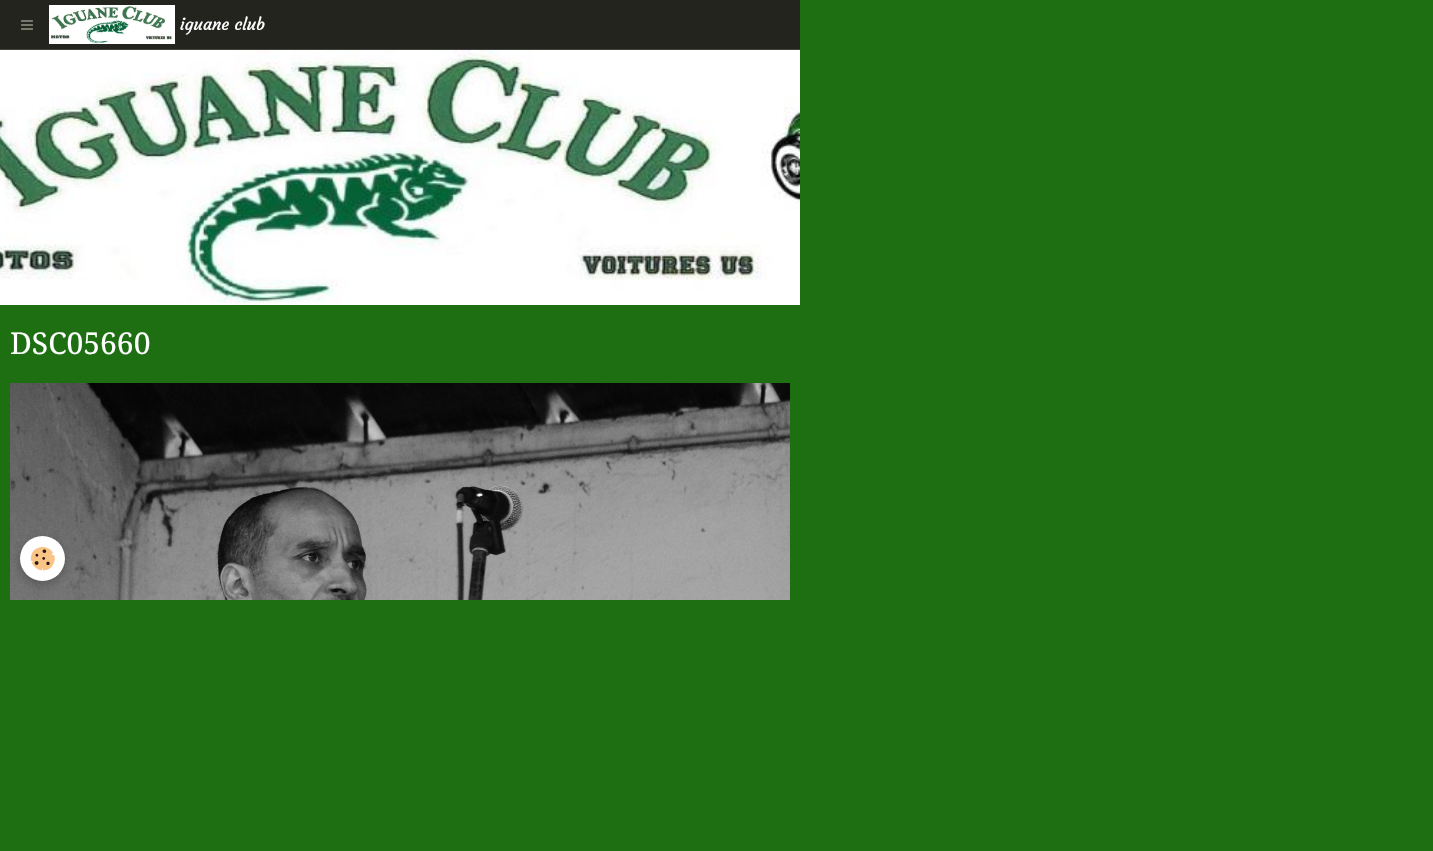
void draw(SkCanvas* canvas) {
  SkPaint paint;
  paint.setAntiAlias(true);
  auto face = [&](const char* family, int weight, float size, bool italic = false) {
    SkFontStyle style(weight, SkFontStyle::kNormal_Width,
      italic ? SkFontStyle::kItalic_Slant : SkFontStyle::kUpright_Slant);
    SkFont result(fontMgr->matchFamilyStyle(family, style), size);
    result.setSubpixel(true);
    return result;
  };
  auto paste = [&](const char* path, float x, float y, float w, float h) {
    auto image = SkImages::DeferredFromEncodedData(SkData::MakeFromFileName(path));
    canvas->drawImageRect(image, SkRect::MakeXYWH(x, y, w, h), SkSamplingOptions());
  };
  canvas->clear(0xff1d6f12);
  paint.setColor(0xff24241f);
  canvas->drawRect(SkRect::MakeXYWH(0, 0, 800, 49), paint);
  paint.setColor(0xff41413d);
  canvas->drawRect(SkRect::MakeXYWH(0, 49, 800, 1), paint);
  paste("img/1.png", 21, 20, 12, 10);
  paste("img/2.png", 49, 5, 126, 39);
  paste("img/3.png", 0, 50, 800, 255);
  paste("img/4.png", 10, 383, 780, 217);
  paint.setColor(0x3d000000);
  paint.setMaskFilter(SkMaskFilter::MakeBlur(kNormal_SkBlurStyle, 5));
  canvas->drawRoundRect(SkRect::MakeXYWH(20, 539, 45, 45), 22.5f, 22.5f, paint);
  paint.setMaskFilter(nullptr);
  paint.setColor(0xffffffff);
  canvas->drawCircle(42.5f, 558.5f, 22.5f, paint);
  paste("img/5.png", 30, 546, 25, 25);
  auto f0 = face("Courgette", 400, 16.75f);
  canvas->drawString("iguane club", 180, 30, f0, paint);
  auto f1 = face("Droid Serif", 400, 30);
  canvas->drawString("DSC05660", 10, 354, f1, paint);
}
